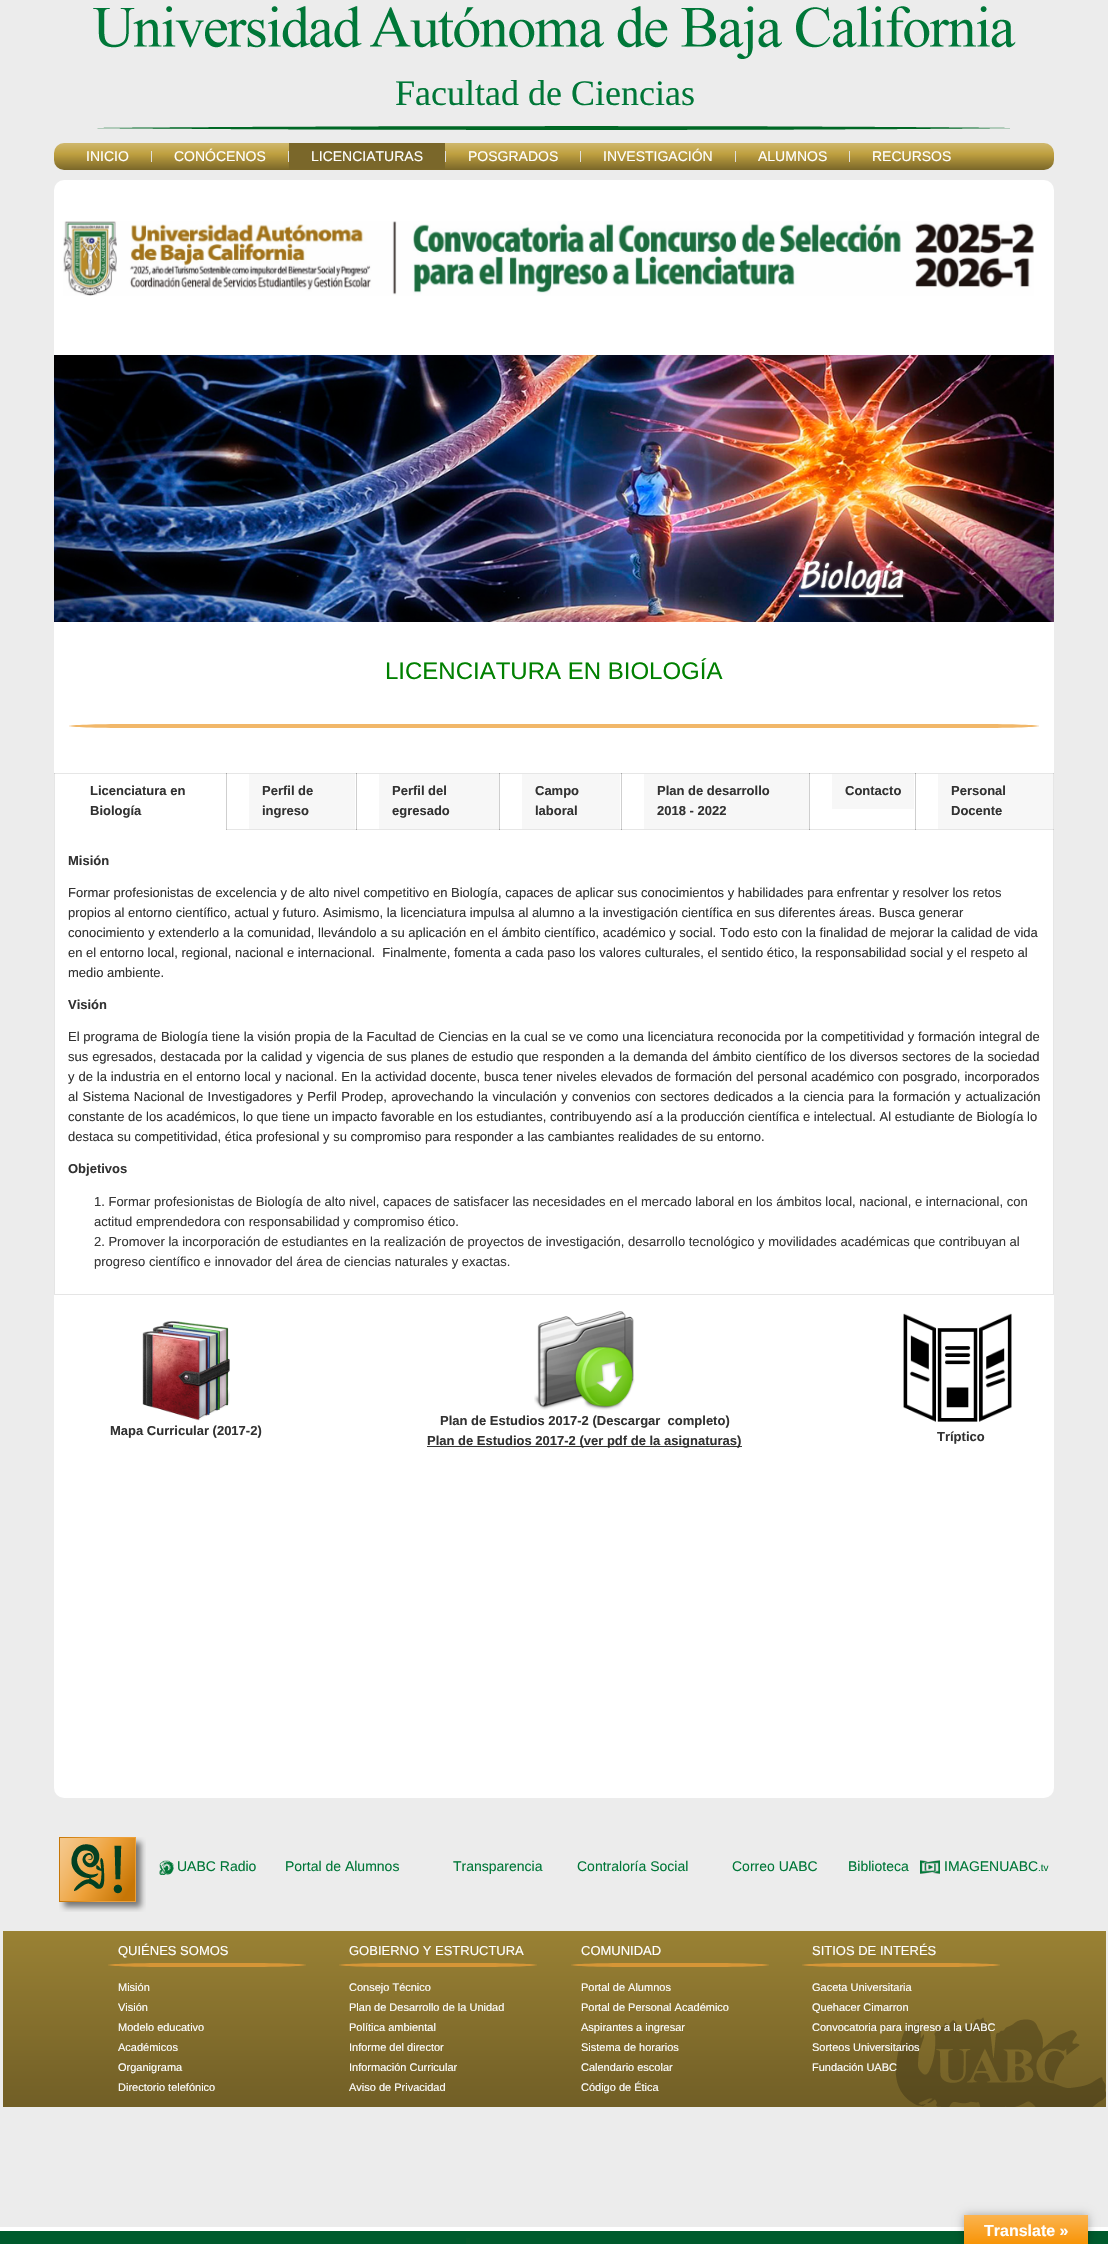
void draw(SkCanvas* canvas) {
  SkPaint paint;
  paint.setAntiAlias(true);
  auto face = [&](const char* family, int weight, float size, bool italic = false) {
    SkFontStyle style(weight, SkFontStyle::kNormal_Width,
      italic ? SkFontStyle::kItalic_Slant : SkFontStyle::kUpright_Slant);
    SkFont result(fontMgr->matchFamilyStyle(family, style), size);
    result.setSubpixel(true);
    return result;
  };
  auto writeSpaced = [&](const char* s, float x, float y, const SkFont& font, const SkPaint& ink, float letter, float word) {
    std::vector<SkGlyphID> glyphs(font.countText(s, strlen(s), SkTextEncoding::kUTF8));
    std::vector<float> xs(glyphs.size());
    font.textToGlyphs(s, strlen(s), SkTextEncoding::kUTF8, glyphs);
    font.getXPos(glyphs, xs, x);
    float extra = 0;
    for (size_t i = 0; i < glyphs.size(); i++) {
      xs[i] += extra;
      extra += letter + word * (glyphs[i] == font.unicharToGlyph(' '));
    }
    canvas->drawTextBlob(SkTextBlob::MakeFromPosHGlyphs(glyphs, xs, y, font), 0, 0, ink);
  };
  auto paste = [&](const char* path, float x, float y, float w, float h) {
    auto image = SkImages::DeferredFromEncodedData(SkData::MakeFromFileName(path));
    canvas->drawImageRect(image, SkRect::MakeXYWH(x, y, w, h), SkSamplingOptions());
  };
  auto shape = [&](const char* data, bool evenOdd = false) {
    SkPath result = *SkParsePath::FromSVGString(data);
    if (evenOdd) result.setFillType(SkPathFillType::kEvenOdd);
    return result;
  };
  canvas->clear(0xffffffff);
  paint.setColor(0xffececec);
  canvas->drawRect(SkRect::MakeXYWH(0, 0, 1108, 2227), paint);
  paste("img/1.png", 93, 6, 923, 53);
  paste("img/2.png", 97, 126, 913, 4);
  {
    const SkColor colors[] = {0xffcfb86e, 0xffbfa040, 0xff7a6729};
    const float stops[] = {0, 0.4f, 1};
    const SkPoint ends[] = {{554, 143}, {554, 170}};
    paint.setShader(SkGradientShader::MakeLinear(ends, colors, stops, 3, SkTileMode::kClamp));
    paint.setAlpha(255);
  }
  canvas->drawRoundRect(SkRect::MakeXYWH(54, 143, 1000, 27), 10, 10, paint);
  paint.setShader(nullptr);
  {
    const struct { float x, y, w, h; SkColor color; } items[] = {
      {151, 151, 1, 11, 0xffe0e0e0},
      {288, 151, 1, 11, 0xffe0e0e0},
      {289, 143, 156, 26, 0xff7a672a},
      {445, 151, 1, 11, 0xffe0e0e0},
      {580, 151, 1, 11, 0xffe0e0e0},
      {735, 151, 1, 11, 0xffe0e0e0},
      {849, 151, 1, 11, 0xffe0e0e0},
    };
    for (auto [x, y, w, h, color] : items) {
      paint.setColor(color);
      canvas->drawRect(SkRect::MakeXYWH(x, y, w, h), paint);
    }
  }
  paint.setColor(0xffffffff);
  canvas->drawRoundRect(SkRect::MakeXYWH(54, 180, 1000, 1618), 10, 10, paint);
  {
    const struct { float x, y, w, h; SkColor color; } items[] = {
      {54, 773, 1, 57, 0xffe6e6e6},
      {54, 773, 173, 1, 0xffe6e6e6},
      {54, 773, 1, 1, 0xffcfcfcf},
      {226, 773, 1, 57, 0xffcfcfcf},
      {226, 829, 131, 1, 0xffe6e6e6},
      {226, 829, 1, 1, 0xffbababa},
      {226, 773, 131, 1, 0xffe6e6e6},
      {226, 773, 1, 1, 0xffa7a7a7},
      {356, 773, 1, 57, 0xffcfcfcf},
      {356, 829, 144, 1, 0xffe6e6e6},
      {356, 829, 1, 1, 0xffa7a7a7},
      {356, 773, 144, 1, 0xffe6e6e6},
      {356, 773, 1, 1, 0xffa7a7a7},
      {499, 773, 1, 57, 0xffcfcfcf},
      {499, 829, 123, 1, 0xffe6e6e6},
      {499, 829, 1, 1, 0xffa7a7a7},
      {499, 773, 123, 1, 0xffe6e6e6},
      {499, 773, 1, 1, 0xffa7a7a7},
      {621, 773, 1, 57, 0xffcfcfcf},
      {621, 829, 189, 1, 0xffe6e6e6},
      {621, 829, 1, 1, 0xffa7a7a7},
      {621, 773, 189, 1, 0xffe6e6e6},
      {621, 773, 1, 1, 0xffa7a7a7},
      {809, 773, 1, 57, 0xffcfcfcf},
      {809, 829, 107, 1, 0xffe6e6e6},
      {809, 829, 1, 1, 0xffa7a7a7},
      {809, 773, 107, 1, 0xffe6e6e6},
      {809, 773, 1, 1, 0xffa7a7a7},
      {915, 773, 1, 57, 0xffcfcfcf},
      {915, 829, 139, 1, 0xffe6e6e6},
      {915, 829, 1, 1, 0xffa7a7a7},
      {1053, 773, 1, 57, 0xffe6e6e6},
      {1053, 829, 1, 1, 0xffcfcfcf},
    };
    for (auto [x, y, w, h, color] : items) {
      paint.setColor(color);
      canvas->drawRect(SkRect::MakeXYWH(x, y, w, h), paint);
    }
  }
  paste("img/3.png", 63, 221, 971, 75);
  paste("img/4.png", 54, 355, 1000, 267);
  paint.setColor(0xfff1b769);
  canvas->drawPath(shape("M129 724H979C1012 724 1039 725 1039 726C1039 727 1012 728 979 728H129C96 728 69 727 69 726C69 725 96 724 129 724Z"), paint);
  {
    const struct { float x, y, w, h; SkColor color; } items[] = {
      {249, 774, 106, 55, 0xfff7f7f7},
      {379, 774, 120, 55, 0xfff7f7f7},
      {522, 774, 98, 55, 0xfff7f7f7},
      {644, 774, 165, 55, 0xfff7f7f7},
      {832, 774, 82, 35, 0xfff7f7f7},
      {915, 773, 139, 1, 0xffe6e6e6},
      {915, 773, 1, 1, 0xffa7a7a7},
      {1053, 773, 1, 1, 0xffcfcfcf},
      {938, 774, 115, 55, 0xfff7f7f7},
    };
    for (auto [x, y, w, h, color] : items) {
      paint.setColor(color);
      canvas->drawRect(SkRect::MakeXYWH(x, y, w, h), paint);
    }
  }
  paint.setColor(0xffe6e6e6);
  canvas->drawPath(shape("M1054 830V1295L1053 1294V830Z"), paint);
  paint.setColor(0x1a000000);
  canvas->drawPath(shape("M1054 1295H54L55 1294H1053Z"), paint);
  canvas->drawPath(shape("M54 1295V830H55V1294Z"), paint);
  paste("img/5.png", 142, 1321, 88, 100);
  paste("img/6.png", 534, 1311, 101, 99);
  paint.setColor(0xff363636);
  canvas->drawRect(SkRect::MakeXYWH(427, 1446, 315, 1), paint);
  paste("img/7.png", 903, 1313, 109, 109);
  paste("img/8.png", 59, 1837, 87, 75);
  paste("img/9.png", 159, 1860, 15, 15);
  paste("img/10.png", 920, 1860, 20, 14);
  paste("img/11.png", 3, 1931, 1103, 176);
  paint.setColor(0xffd69636);
  canvas->drawPath(shape("M168 1963H246C279 1963 306 1964 306 1965C306 1966 279 1967 246 1967H168C135 1967 108 1966 108 1965C108 1964 135 1963 168 1963Z"), paint);
  canvas->drawPath(shape("M399 1963H477C510 1963 537 1964 537 1965C537 1966 510 1967 477 1967H399C366 1967 339 1966 339 1965C339 1964 366 1963 399 1963Z"), paint);
  canvas->drawPath(shape("M631 1963H709C742 1963 769 1964 769 1965C769 1966 742 1967 709 1967H631C598 1967 571 1966 571 1965C571 1964 598 1963 631 1963Z"), paint);
  canvas->drawPath(shape("M862 1963H940C973 1963 1000 1964 1000 1965C1000 1966 973 1967 940 1967H862C829 1967 802 1966 802 1965C802 1964 829 1963 862 1963Z"), paint);
  paint.setColor(0xff005b2d);
  canvas->drawRect(SkRect::MakeXYWH(0, 2231, 1108, 13), paint);
  paint.setColor(0x4d000000);
  paint.setMaskFilter(SkMaskFilter::MakeBlur(kNormal_SkBlurStyle, 4.5f));
  canvas->drawRect(SkRect::MakeXYWH(964, 2215, 124, 29), paint);
  paint.setMaskFilter(nullptr);
  {
    const SkColor colors[] = {0xfffbb450, 0xfff89406};
    const float stops[] = {0, 1};
    const SkPoint ends[] = {{1026, 2215}, {1026, 2244}};
    paint.setShader(SkGradientShader::MakeLinear(ends, colors, stops, 2, SkTileMode::kClamp));
    paint.setAlpha(255);
  }
  canvas->drawRect(SkRect::MakeXYWH(964, 2215, 124, 29), paint);
  paint.setShader(nullptr);
  paint.setColor(0xff055b2d);
  canvas->drawRect(SkRect::MakeXYWH(466, 2238, 4, 6), paint);
  auto f0 = face("Liberation Serif", 400, 36);
  paint.setColor(0xff007738);
  canvas->drawString("Facultad de Ciencias", 395, 105, f0, paint);
  auto f1 = face("Liberation Sans", 400, 14);
  paint.setColor(0xffffffff);
  {
    const struct { const char* s; float x, y; } items[] = {
      {"INICIO", 86, 161},
      {"CONÓCENOS", 174, 161},
      {"LICENCIATURAS", 311, 161},
      {"POSGRADOS", 468, 161},
      {"INVESTIGACIÓN", 603, 161},
      {"ALUMNOS", 758, 161},
      {"RECURSOS", 872, 161},
    };
    for (auto [s, x, y] : items) {
      canvas->drawString(s, x, y, f1, paint);
    }
  }
  auto f2 = face("Liberation Sans", 400, 24);
  paint.setColor(0xff008000);
  canvas->drawString("LICENCIATURA EN BIOLOGÍA", 385, 679, f2, paint);
  auto f3 = face("Liberation Sans", 700, 13);
  paint.setColor(0xff323232);
  {
    const struct { const char* s; float x, y; } items[] = {
      {"Licenciatura en", 90, 795},
      {"Biología", 90, 815},
      {"Perfil de", 262, 795},
      {"ingreso", 262, 815},
      {"Perfil del", 392, 795},
      {"egresado", 392, 815},
      {"Campo", 535, 795},
      {"laboral", 535, 815},
      {"Plan de desarrollo", 657, 795},
      {"2018 - 2022", 657, 815},
      {"Contacto", 845, 795},
      {"Personal", 951, 795},
      {"Docente", 951, 815},
      {"Misión", 68, 865},
    };
    for (auto [s, x, y] : items) {
      canvas->drawString(s, x, y, f3, paint);
    }
  }
  auto f4 = face("Liberation Sans", 400, 13);
  {
    const struct { const char* s; float x, y; } items[] = {
      {"Formar profesionistas de excelencia y de alto nivel competitivo en Biología, capaces de aplicar sus conocimientos y habilidades para enfrentar y resolver los retos", 68, 897},
      {"propios al entorno científico, actual y futuro. Asimismo, la licenciatura impulsa al alumno a la investigación científica en sus diferentes áreas. Busca generar", 68, 917},
      {"conocimiento y extenderlo a la comunidad, llevándolo a su aplicación en el ámbito científico, académico y social. Todo esto con la finalidad de mejorar la calidad de vida", 68, 937},
      {"en el entorno local, regional, nacional e internacional.  Finalmente, fomenta a cada paso los valores culturales, el sentido ético, la responsabilidad social y el respeto al", 68, 957},
      {"medio ambiente.", 68, 977},
    };
    for (auto [s, x, y] : items) {
      canvas->drawString(s, x, y, f4, paint);
    }
  }
  canvas->drawString("Visión", 68, 1009, f3, paint);
  writeSpaced("El programa de Biología tiene la visión propia de la Facultad de Ciencias en la cual se ve como una licenciatura reconocida por la competitividad y formación integral de", 68, 1041, f4, paint, 0, 0.15f);
  writeSpaced("sus egresados, destacada por la calidad y vigencia de sus planes de estudio que responden a la demanda del ámbito científico de los diversos sectores de la sociedad", 68, 1061, f4, paint, 0, 0.3f);
  writeSpaced("y de la industria en el entorno local y nacional. En la actividad docente, busca tener niveles elevados de formación del personal académico con posgrado, incorporados", 68, 1081, f4, paint, 0, 0.3f);
  writeSpaced("al Sistema Nacional de Investigadores y Perfil Prodep, aprovechando la vinculación y convenios con sectores dedicados a la ciencia para la formación y actualización", 68, 1101, f4, paint, 0, 0.75f);
  canvas->drawString("constante de los académicos, lo que tiene un impacto favorable en los estudiantes, contribuyendo así a la producción científica e intelectual. Al estudiante de Biología lo", 68, 1121, f4, paint);
  canvas->drawString("destaca su competitividad, ética profesional y su compromiso para responder a las cambiantes realidades de su entorno.", 68, 1141, f4, paint);
  canvas->drawString("Objetivos", 68, 1173, f3, paint);
  paint.setColor(0xff383838);
  {
    const struct { const char* s; float x, y; } items[] = {
      {"1. Formar profesionistas de Biología de alto nivel, capaces de satisfacer las necesidades en el mercado laboral en los ámbitos local, nacional, e internacional, con", 94, 1206},
      {"actitud emprendedora con responsabilidad y compromiso ético.", 94, 1226},
      {"2. Promover la incorporación de estudiantes en la realización de proyectos de investigación, desarrollo tecnológico y movilidades académicas que contribuyan al", 94, 1246},
      {"progreso científico e innovador del área de ciencias naturales y exactas.", 94, 1266},
    };
    for (auto [s, x, y] : items) {
      canvas->drawString(s, x, y, f4, paint);
    }
  }
  paint.setColor(0xff323232);
  {
    const struct { const char* s; float x, y; } items[] = {
      {"Mapa Curricular (2017-2)", 110, 1435},
      {"Plan de Estudios 2017-2 (Descargar  completo)", 440, 1425},
      {"Plan de Estudios 2017-2 (ver pdf de la asignaturas)", 427, 1445},
      {"Tríptico", 937, 1441},
    };
    for (auto [s, x, y] : items) {
      canvas->drawString(s, x, y, f3, paint);
    }
  }
  paint.setColor(0xff007738);
  {
    const struct { const char* s; float x, y; } items[] = {
      {"UABC Radio", 177, 1871},
      {"Portal de Alumnos", 285, 1871},
      {"Transparencia", 453, 1871},
      {"Contraloría Social", 577, 1871},
      {"Correo UABC", 732, 1871},
      {"Biblioteca", 848, 1871},
      {"IMAGENUABC", 944, 1871},
    };
    for (auto [s, x, y] : items) {
      canvas->drawString(s, x, y, f1, paint);
    }
  }
  auto f5 = face("Liberation Sans", 400, 10);
  canvas->drawString(".tv", 1038, 1871, f5, paint);
  paint.setColor(0xffffffff);
  canvas->drawString("QUIÉNES SOMOS", 118, 1955, f4, paint);
  auto f6 = face("Liberation Sans", 400, 11);
  {
    const struct { const char* s; float x, y; } items[] = {
      {"Misión", 118, 1991},
      {"Visión", 118, 2011},
      {"Modelo educativo", 118, 2031},
      {"Académicos", 118, 2051},
      {"Organigrama", 118, 2071},
      {"Directorio telefónico", 118, 2091},
    };
    for (auto [s, x, y] : items) {
      canvas->drawString(s, x, y, f6, paint);
    }
  }
  canvas->drawString("GOBIERNO Y ESTRUCTURA", 349, 1955, f4, paint);
  {
    const struct { const char* s; float x, y; } items[] = {
      {"Consejo Técnico", 349, 1991},
      {"Plan de Desarrollo de la Unidad", 349, 2011},
      {"Política ambiental", 349, 2031},
      {"Informe del director", 349, 2051},
      {"Información Curricular", 349, 2071},
      {"Aviso de Privacidad", 349, 2091},
    };
    for (auto [s, x, y] : items) {
      canvas->drawString(s, x, y, f6, paint);
    }
  }
  canvas->drawString("COMUNIDAD", 581, 1955, f4, paint);
  {
    const struct { const char* s; float x, y; } items[] = {
      {"Portal de Alumnos", 581, 1991},
      {"Portal de Personal Académico", 581, 2011},
      {"Aspirantes a ingresar", 581, 2031},
      {"Sistema de horarios", 581, 2051},
      {"Calendario escolar", 581, 2071},
      {"Código de Ética", 581, 2091},
    };
    for (auto [s, x, y] : items) {
      canvas->drawString(s, x, y, f6, paint);
    }
  }
  canvas->drawString("SITIOS DE INTERÉS", 812, 1955, f4, paint);
  {
    const struct { const char* s; float x, y; } items[] = {
      {"Gaceta Universitaria", 812, 1991},
      {"Quehacer Cimarron", 812, 2011},
      {"Convocatoria para ingreso a la UABC", 812, 2031},
      {"Sorteos Universitarios", 812, 2051},
      {"Fundación UABC", 812, 2071},
    };
    for (auto [s, x, y] : items) {
      canvas->drawString(s, x, y, f6, paint);
    }
  }
  auto f7 = face("Liberation Sans", 700, 16);
  canvas->drawString("Translate »", 984, 2236, f7, paint);
}
